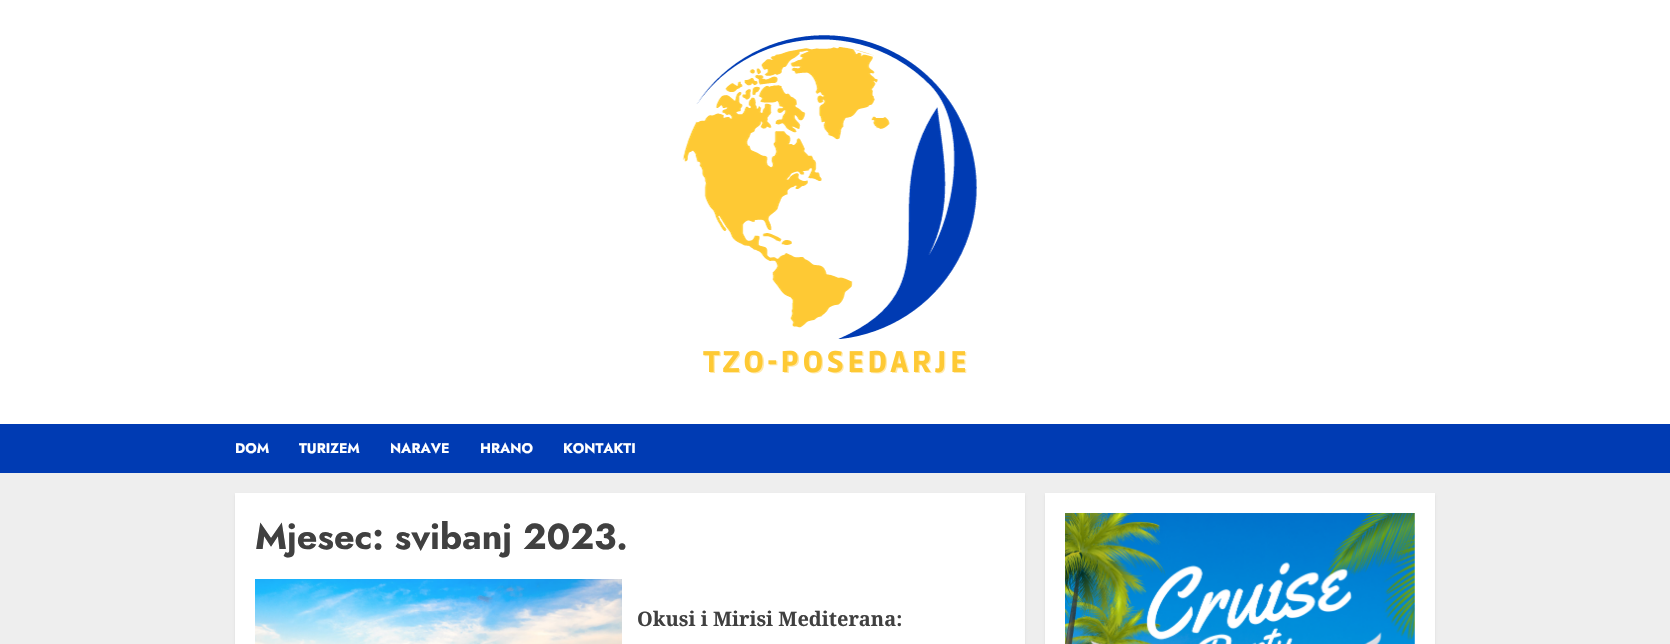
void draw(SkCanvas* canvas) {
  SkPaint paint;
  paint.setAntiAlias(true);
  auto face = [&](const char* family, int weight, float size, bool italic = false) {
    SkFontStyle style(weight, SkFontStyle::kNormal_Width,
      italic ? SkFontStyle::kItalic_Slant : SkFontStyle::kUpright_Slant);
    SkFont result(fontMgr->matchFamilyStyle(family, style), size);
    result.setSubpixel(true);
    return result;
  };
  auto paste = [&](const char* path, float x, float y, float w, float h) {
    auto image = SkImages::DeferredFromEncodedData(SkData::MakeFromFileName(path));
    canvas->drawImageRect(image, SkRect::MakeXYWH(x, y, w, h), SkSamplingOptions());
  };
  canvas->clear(0xffeeeeee);
  paint.setColor(0xffffffff);
  canvas->drawRect(SkRect::MakeXYWH(0, 0, 1670, 424), paint);
  paste("img/1.png", 682, 35, 295, 339);
  paint.setColor(0xff003bb3);
  canvas->drawRect(SkRect::MakeXYWH(0, 424, 1670, 49), paint);
  paint.setColor(0x14000000);
  paint.setMaskFilter(SkMaskFilter::MakeBlur(kNormal_SkBlurStyle, 1));
  canvas->drawRect(SkRect::MakeXYWH(235, 495, 790, 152), paint);
  paint.setMaskFilter(nullptr);
  paint.setColor(0xffffffff);
  canvas->drawRect(SkRect::MakeXYWH(235, 493, 790, 151), paint);
  paste("img/2.png", 255, 579, 367, 65);
  paint.setColor(0x14000000);
  paint.setMaskFilter(SkMaskFilter::MakeBlur(kNormal_SkBlurStyle, 1));
  canvas->drawRect(SkRect::MakeXYWH(1045, 495, 390, 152), paint);
  paint.setMaskFilter(nullptr);
  paint.setColor(0xffffffff);
  canvas->drawRect(SkRect::MakeXYWH(1045, 493, 390, 151), paint);
  paste("img/3.png", 1065, 513, 350, 131);
  auto f0 = face("Jost", 700, 14);
  {
    const struct { const char* s; float x, y; } items[] = {
      {"DOM", 235, 453},
      {"TURIZEM", 299, 453},
      {"NARAVE", 390, 453},
      {"HRANO", 480, 453},
      {"KONTAKTI", 563, 453},
    };
    for (auto [s, x, y] : items) {
      canvas->drawString(s, x, y, f0, paint);
    }
  }
  auto f1 = face("Jost", 700, 36);
  paint.setColor(0xff404040);
  canvas->drawString("Mjesec: svibanj 2023.", 255, 549, f1, paint);
  auto f2 = face("Noto Serif", 700, 20);
  canvas->drawString("Okusi i Mirisi Mediterana:", 637, 626, f2, paint);
}
